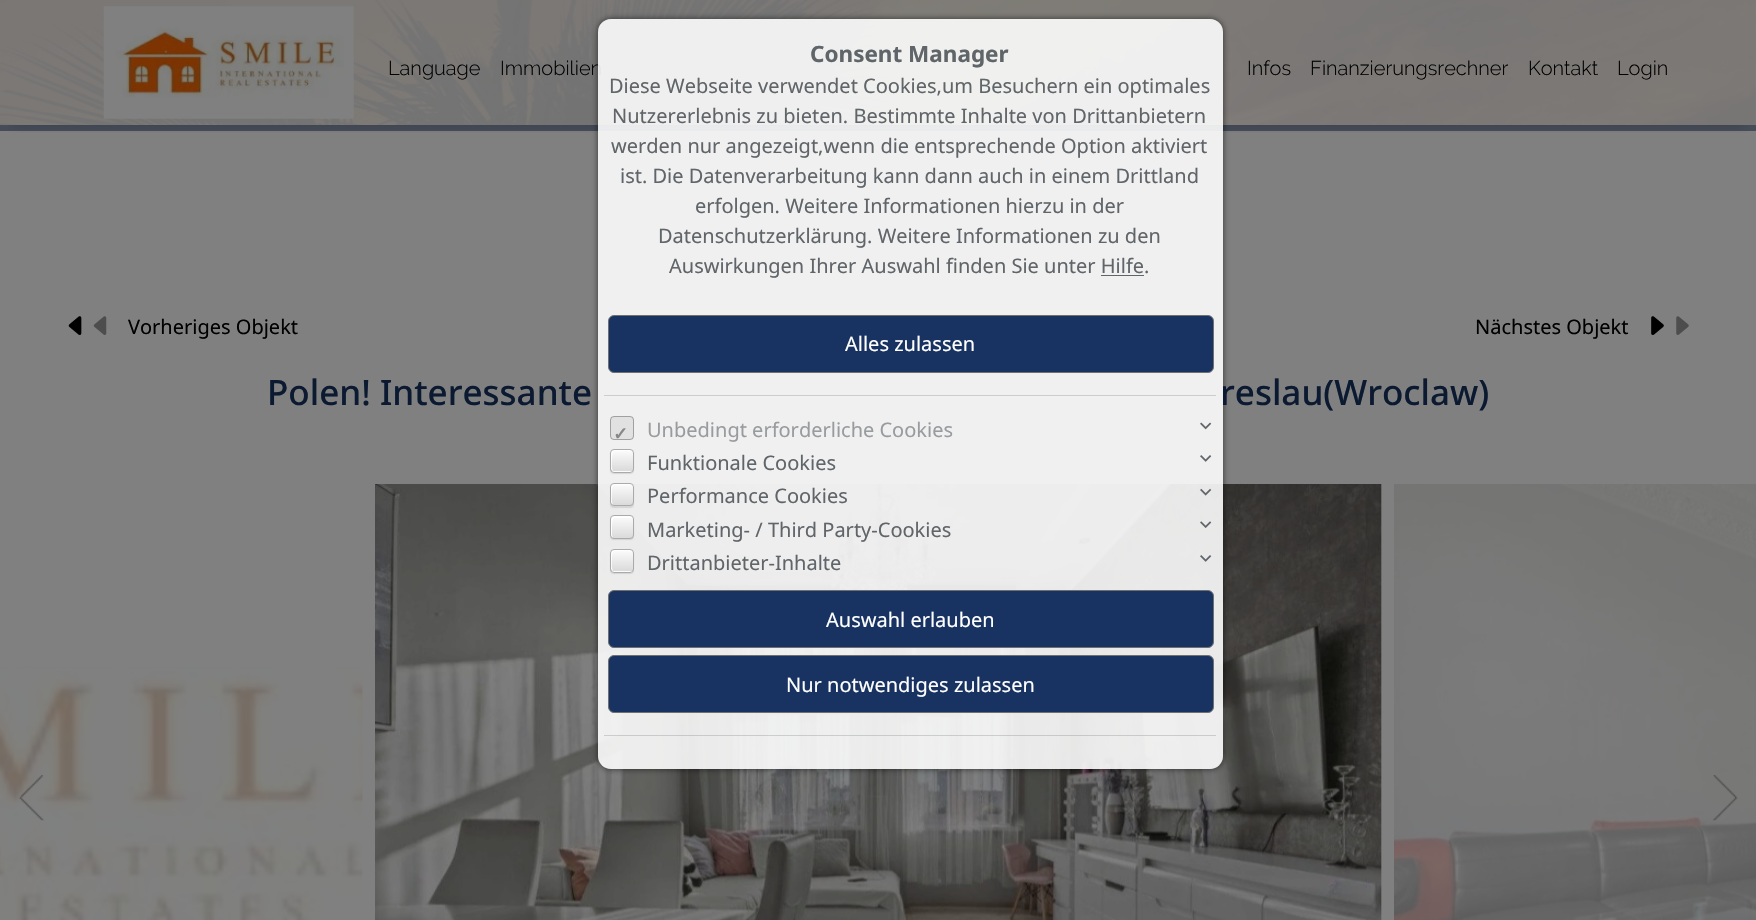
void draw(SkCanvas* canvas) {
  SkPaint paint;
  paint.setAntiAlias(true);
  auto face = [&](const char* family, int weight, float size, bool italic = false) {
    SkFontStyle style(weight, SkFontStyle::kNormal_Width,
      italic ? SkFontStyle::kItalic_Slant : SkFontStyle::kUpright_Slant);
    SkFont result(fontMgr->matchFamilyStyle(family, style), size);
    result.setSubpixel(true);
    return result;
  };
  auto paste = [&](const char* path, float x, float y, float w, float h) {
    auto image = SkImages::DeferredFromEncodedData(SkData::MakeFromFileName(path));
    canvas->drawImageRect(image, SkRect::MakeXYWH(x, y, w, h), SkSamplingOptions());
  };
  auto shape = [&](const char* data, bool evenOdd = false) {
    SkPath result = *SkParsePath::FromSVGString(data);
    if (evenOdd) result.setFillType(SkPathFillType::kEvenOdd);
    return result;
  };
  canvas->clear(0xffffffff);
  paste("img/1.png", 0, 0, 1756, 125);
  paint.setColor(0xff808080);
  canvas->drawRect(SkRect::MakeXYWH(0, 125, 1756, 795), paint);
  canvas->save();
  canvas->clipRect(SkRect::MakeXYWH(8, 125, 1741, 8));
  paint.setColor(0x33000000);
  paint.setMaskFilter(SkMaskFilter::MakeBlur(kNormal_SkBlurStyle, 6));
  canvas->drawRect(SkRect::MakeXYWH(13, 25, 1731, 100), paint);
  paint.setMaskFilter(nullptr);
  canvas->restore();
  paint.setColor(0xe6808080);
  canvas->drawRect(SkRect::MakeXYWH(0, 0, 1756, 125), paint);
  paint.setColor(0x800c1a31);
  canvas->drawRect(SkRect::MakeXYWH(0, 125, 1756, 6), paint);
  paste("img/13.png", 375, 484, 1007, 436);
  canvas->save();
  canvas->clipPath(shape("M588 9H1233V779H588ZM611 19H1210C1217 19 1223 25 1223 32V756C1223 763 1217 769 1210 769H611C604 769 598 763 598 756V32C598 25 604 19 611 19Z", true), true);
  paint.setColor(0x99000000);
  paint.setMaskFilter(SkMaskFilter::MakeBlur(kNormal_SkBlurStyle, 3));
  canvas->drawRoundRect(SkRect::MakeXYWH(598, 19, 625, 750), 13, 13, paint);
  paint.setMaskFilter(nullptr);
  canvas->restore();
  paste("img/7.png", 103, 6, 251, 113);
  paste("img/8.png", 68, 316, 14, 19);
  paste("img/9.png", 68, 316, 39, 19);
  paste("img/10.png", 1651, 316, 13, 19);
  paste("img/11.png", 1651, 316, 38, 19);
  paste("img/12.png", 0, 667, 363, 253);
  paint.setColor(0xb3808080);
  canvas->drawRect(SkRect::MakeXYWH(0, 668, 363, 252), paint);
  paste("img/14.png", 1394, 484, 362, 436);
  paste("img/15.png", 19, 775, 25, 46);
  paste("img/16.png", 1712, 775, 26, 46);
  auto f0 = face("Raleway", 300, 20);
  paint.setColor(0xff000000);
  {
    const struct { const char* s; float x, y; } items[] = {
      {"Language", 388, 75},
      {"Immobilien", 500, 75},
      {"Infos", 1247, 75},
      {"Finanzierungsrechner", 1310, 75},
      {"Kontakt", 1528, 75},
      {"Login", 1617, 75},
    };
    for (auto [s, x, y] : items) {
      canvas->drawString(s, x, y, f0, paint);
    }
  }
  auto f1 = face("Noto Sans", 400, 20);
  canvas->drawString("Vorheriges Objekt", 128, 334, f1, paint);
  canvas->drawString("Nächstes Objekt", 1475, 334, f1, paint);
  auto f2 = face("Noto Sans", 500, 35);
  paint.setColor(0xff0c1a31);
  canvas->drawString("Polen! Interessante", 267, 405, f2, paint);
  canvas->drawString("reslau(Wroclaw)", 1220, 405, f2, paint);
  paint.setColor(0xe6fcfcfc);
  canvas->drawRoundRect(SkRect::MakeXYWH(598, 19, 625, 750), 13, 13, paint);
  paint.setColor(0x40606569);
  canvas->drawRect(SkRect::MakeXYWH(604, 735, 612, 1), paint);
  paste("img/6.png", 1200, 555, 12, 7);
  paste("img/5.png", 1200, 521, 12, 7);
  paste("img/4.png", 1200, 488, 12, 8);
  paste("img/3.png", 1200, 455, 12, 7);
  paste("img/2.png", 1200, 422, 12, 8);
  paint.setColor(0xff999c9f);
  canvas->drawString("Unbedingt erforderliche Cookies", 647, 437, f1, paint);
  paint.setColor(0xffe1e1e1);
  canvas->drawRoundRect(SkRect::MakeXYWH(610, 416, 24, 24), 4, 4, paint);
  paint.setStroke(true);
  paint.setStrokeWidth(1);
  paint.setColor(0x80606060);
  canvas->drawRoundRect(SkRect::MakeXYWH(610.5f, 416.5f, 23, 23), 3.5f, 3.5f, paint);
  auto f3 = face("DejaVu Sans", 700, 18);
  paint.setStroke(false);
  paint.setColor(0xff878787);
  canvas->drawString("✓", 613, 440, f3, paint);
  paint.setColor(0x40606569);
  canvas->drawRect(SkRect::MakeXYWH(604, 395, 612, 1), paint);
  paint.setColor(0xff183361);
  canvas->drawRoundRect(SkRect::MakeXYWH(608.5f, 655.5f, 605, 57), 5.5f, 5.5f, paint);
  paint.setStroke(true);
  paint.setColor(0xff707070);
  canvas->drawRoundRect(SkRect::MakeXYWH(608.5f, 655.5f, 605, 57), 5.5f, 5.5f, paint);
  paint.setStroke(false);
  paint.setColor(0xffffffff);
  canvas->drawString("Nur notwendiges zulassen", 786, 692, f1, paint);
  paint.setColor(0xff183361);
  canvas->drawRoundRect(SkRect::MakeXYWH(608.5f, 590.5f, 605, 57), 5.5f, 5.5f, paint);
  paint.setStroke(true);
  paint.setColor(0xff707070);
  canvas->drawRoundRect(SkRect::MakeXYWH(608.5f, 590.5f, 605, 57), 5.5f, 5.5f, paint);
  paint.setStroke(false);
  paint.setColor(0xffffffff);
  canvas->drawString("Auswahl erlauben", 826, 627, f1, paint);
  paint.setColor(0xff183361);
  canvas->drawRoundRect(SkRect::MakeXYWH(608.5f, 315.5f, 605, 57), 5.5f, 5.5f, paint);
  paint.setStroke(true);
  paint.setColor(0xff707070);
  canvas->drawRoundRect(SkRect::MakeXYWH(608.5f, 315.5f, 605, 57), 5.5f, 5.5f, paint);
  paint.setStroke(false);
  paint.setColor(0xffffffff);
  canvas->drawString("Alles zulassen", 845, 351, f1, paint);
  paint.setColor(0xff606569);
  canvas->drawRect(SkRect::MakeXYWH(1101, 275, 43, 1), paint);
  {
    const struct { const char* s; float x, y; } items[] = {
      {"Auswirkungen Ihrer Auswahl finden Sie unter Hilfe.", 669, 273},
      {"Datenschutzerklärung. Weitere Informationen zu den", 658, 243},
      {"erfolgen. Weitere Informationen hierzu in der", 695, 213},
      {"ist. Die Datenverarbeitung kann dann auch in einem Drittland", 620, 183},
      {"werden nur angezeigt,wenn die entsprechende Option aktiviert", 611, 153},
      {"Nutzererlebnis zu bieten. Bestimmte Inhalte von Drittanbietern", 612, 123},
      {"Diese Webseite verwendet Cookies,um Besuchern ein optimales", 609, 93},
    };
    for (auto [s, x, y] : items) {
      canvas->drawString(s, x, y, f1, paint);
    }
  }
  auto f4 = face("Noto Sans", 700, 22.5f);
  canvas->drawString("Consent Manager", 810, 62, f4, paint);
  canvas->drawString("Drittanbieter-Inhalte", 647, 570, f1, paint);
  paint.setColor(0x1a000000);
  paint.setMaskFilter(SkMaskFilter::MakeBlur(kNormal_SkBlurStyle, 0.5f));
  canvas->drawRoundRect(SkRect::MakeXYWH(610, 550, 24, 24), 4, 4, paint);
  paint.setMaskFilter(nullptr);
  canvas->save();
  canvas->clipPath(shape("M614 549H630C632 549 634 551 634 553V569C634 571 632 573 630 573H614C612 573 610 571 610 569V553C610 551 612 549 614 549Z"), true);
  {
    const SkColor colors[] = {0xfffcfcfc, 0xffdadada};
    const float stops[] = {0, 1};
    const SkPoint ends[] = {{622, 550}, {622, 571}};
    paint.setShader(SkGradientShader::MakeLinear(ends, colors, stops, 2, SkTileMode::kClamp));
    paint.setAlpha(255);
  }
  canvas->drawRect(SkRect::MakeXYWH(610, 550, 24, 21), paint);
  canvas->restore();
  paint.setShader(nullptr);
  paint.setColor(0xffffffff);
  canvas->drawPath(shape("M615 551H629C631 551 632 551.5 633 552C632.5 551 631.5 550 630.5 550H613.5C612 550 611 551 611 552.5V568.5C611 569.5 612 570.5 613 571L612 568C611.5 566 612 555 612.5 553.5C613 552 613.5 551 615 551Z"), paint);
  canvas->save();
  canvas->clipPath(shape("M614 549H630C632 549 634 551 634 553V569C634 571 632 573 630 573H614C612 573 610 571 610 569V553C610 551 612 549 614 549Z"), true);
  {
    const SkColor colors[] = {0xfffcfcfc, 0xffdadada};
    const float stops[] = {0, 1};
    const SkPoint ends[] = {{622, 571}, {622, 593}};
    paint.setShader(SkGradientShader::MakeLinear(ends, colors, stops, 2, SkTileMode::kClamp));
    paint.setAlpha(255);
  }
  canvas->drawRect(SkRect::MakeXYWH(610, 571, 24, 2), paint);
  canvas->restore();
  paint.setStroke(true);
  paint.setShader(nullptr);
  paint.setColor(0xffaaaaaa);
  canvas->drawRoundRect(SkRect::MakeXYWH(610.5f, 549.5f, 23, 23), 3.5f, 3.5f, paint);
  paint.setStroke(false);
  paint.setColor(0xff606569);
  canvas->drawString("Marketing- / Third Party-Cookies", 647, 537, f1, paint);
  paint.setColor(0x1a000000);
  paint.setMaskFilter(SkMaskFilter::MakeBlur(kNormal_SkBlurStyle, 0.5f));
  canvas->drawRoundRect(SkRect::MakeXYWH(610, 516, 24, 24), 4, 4, paint);
  paint.setMaskFilter(nullptr);
  canvas->save();
  canvas->clipPath(shape("M614 515H630C632 515 634 517 634 519V535C634 537 632 539 630 539H614C612 539 610 537 610 535V519C610 517 612 515 614 515Z"), true);
  {
    const SkColor colors[] = {0xfffcfcfc, 0xffdadada};
    const float stops[] = {0, 1};
    const SkPoint ends[] = {{622, 516}, {622, 538}};
    paint.setShader(SkGradientShader::MakeLinear(ends, colors, stops, 2, SkTileMode::kClamp));
    paint.setAlpha(255);
  }
  canvas->drawRect(SkRect::MakeXYWH(610, 516, 24, 22), paint);
  canvas->restore();
  paint.setShader(nullptr);
  paint.setColor(0xffffffff);
  canvas->drawPath(shape("M615 518H629C631 518 632 518 633 518.5C633 517 632 516 630.5 516H613.5C612 516 611 517 611 518.5V535.5C611 536.5 612 538 613 538L612 535C612 532.5 612 521.5 612.5 520C613 519 613.5 518 615 518Z"), paint);
  paint.setStroke(true);
  paint.setColor(0xffaaaaaa);
  canvas->drawRoundRect(SkRect::MakeXYWH(610.5f, 515.5f, 23, 23), 3.5f, 3.5f, paint);
  paint.setStroke(false);
  paint.setColor(0xff606569);
  canvas->drawString("Performance Cookies", 647, 503, f1, paint);
  paint.setColor(0x1a000000);
  paint.setMaskFilter(SkMaskFilter::MakeBlur(kNormal_SkBlurStyle, 0.5f));
  canvas->drawRoundRect(SkRect::MakeXYWH(610, 484, 24, 24), 4, 4, paint);
  paint.setMaskFilter(nullptr);
  canvas->save();
  canvas->clipPath(shape("M614 483H630C632 483 634 485 634 487V502C634 504 632 506 630 506H614C612 506 610 504 610 502V487C610 485 612 483 614 483Z"), true);
  {
    const SkColor colors[] = {0xfffcfcfc, 0xffdadada};
    const float stops[] = {0, 1};
    const SkPoint ends[] = {{622, 484}, {622, 505}};
    paint.setShader(SkGradientShader::MakeLinear(ends, colors, stops, 2, SkTileMode::kClamp));
    paint.setAlpha(255);
  }
  canvas->drawRect(SkRect::MakeXYWH(610, 484, 24, 21), paint);
  canvas->restore();
  paint.setShader(nullptr);
  paint.setColor(0xffffffff);
  canvas->drawPath(shape("M615 485H629C631 485 632 485.5 633 486C632.5 485 631.5 484 630.5 484H613.5C612 484 611 485 611 486.5V502.5C611 503.5 612 504.5 613 505L612 502C611.5 500 612 488.5 612.5 487C613 486 613.5 485 615 485Z"), paint);
  paint.setStroke(true);
  paint.setColor(0xffaaaaaa);
  canvas->drawRoundRect(SkRect::MakeXYWH(610.5f, 483.5f, 23, 22), 3.5f, 3.5f, paint);
  paint.setStroke(false);
  paint.setColor(0xff606569);
  canvas->drawString("Funktionale Cookies", 647, 470, f1, paint);
  paint.setColor(0x1a000000);
  paint.setMaskFilter(SkMaskFilter::MakeBlur(kNormal_SkBlurStyle, 0.5f));
  canvas->drawRoundRect(SkRect::MakeXYWH(610, 450, 24, 24), 4, 4, paint);
  paint.setMaskFilter(nullptr);
  canvas->save();
  canvas->clipPath(shape("M614 449H630C632 449 634 451 634 453V469C634 471 632 473 630 473H614C612 473 610 471 610 469V453C610 451 612 449 614 449Z"), true);
  {
    const SkColor colors[] = {0xfffcfcfc, 0xffdadada};
    const float stops[] = {0, 1};
    const SkPoint ends[] = {{622, 450}, {622, 471}};
    paint.setShader(SkGradientShader::MakeLinear(ends, colors, stops, 2, SkTileMode::kClamp));
    paint.setAlpha(255);
  }
  canvas->drawRect(SkRect::MakeXYWH(610, 450, 24, 21), paint);
  canvas->restore();
  paint.setShader(nullptr);
  paint.setColor(0xffffffff);
  canvas->drawPath(shape("M615 451H629C631 451 632 451.5 633 452C632.5 451 631.5 450 630.5 450H613.5C612 450 611 451 611 452.5V468.5C611 469.5 612 470.5 613 471L612 468C611.5 466 612 455 612.5 453.5C613 452 613.5 451 615 451Z"), paint);
  canvas->save();
  canvas->clipPath(shape("M614 449H630C632 449 634 451 634 453V469C634 471 632 473 630 473H614C612 473 610 471 610 469V453C610 451 612 449 614 449Z"), true);
  {
    const SkColor colors[] = {0xfffcfcfc, 0xffdadada};
    const float stops[] = {0, 1};
    const SkPoint ends[] = {{622, 471}, {622, 493}};
    paint.setShader(SkGradientShader::MakeLinear(ends, colors, stops, 2, SkTileMode::kClamp));
    paint.setAlpha(255);
  }
  canvas->drawRect(SkRect::MakeXYWH(610, 471, 24, 2), paint);
  canvas->restore();
  paint.setStroke(true);
  paint.setShader(nullptr);
  paint.setColor(0xffaaaaaa);
  canvas->drawRoundRect(SkRect::MakeXYWH(610.5f, 449.5f, 23, 23), 3.5f, 3.5f, paint);
}
